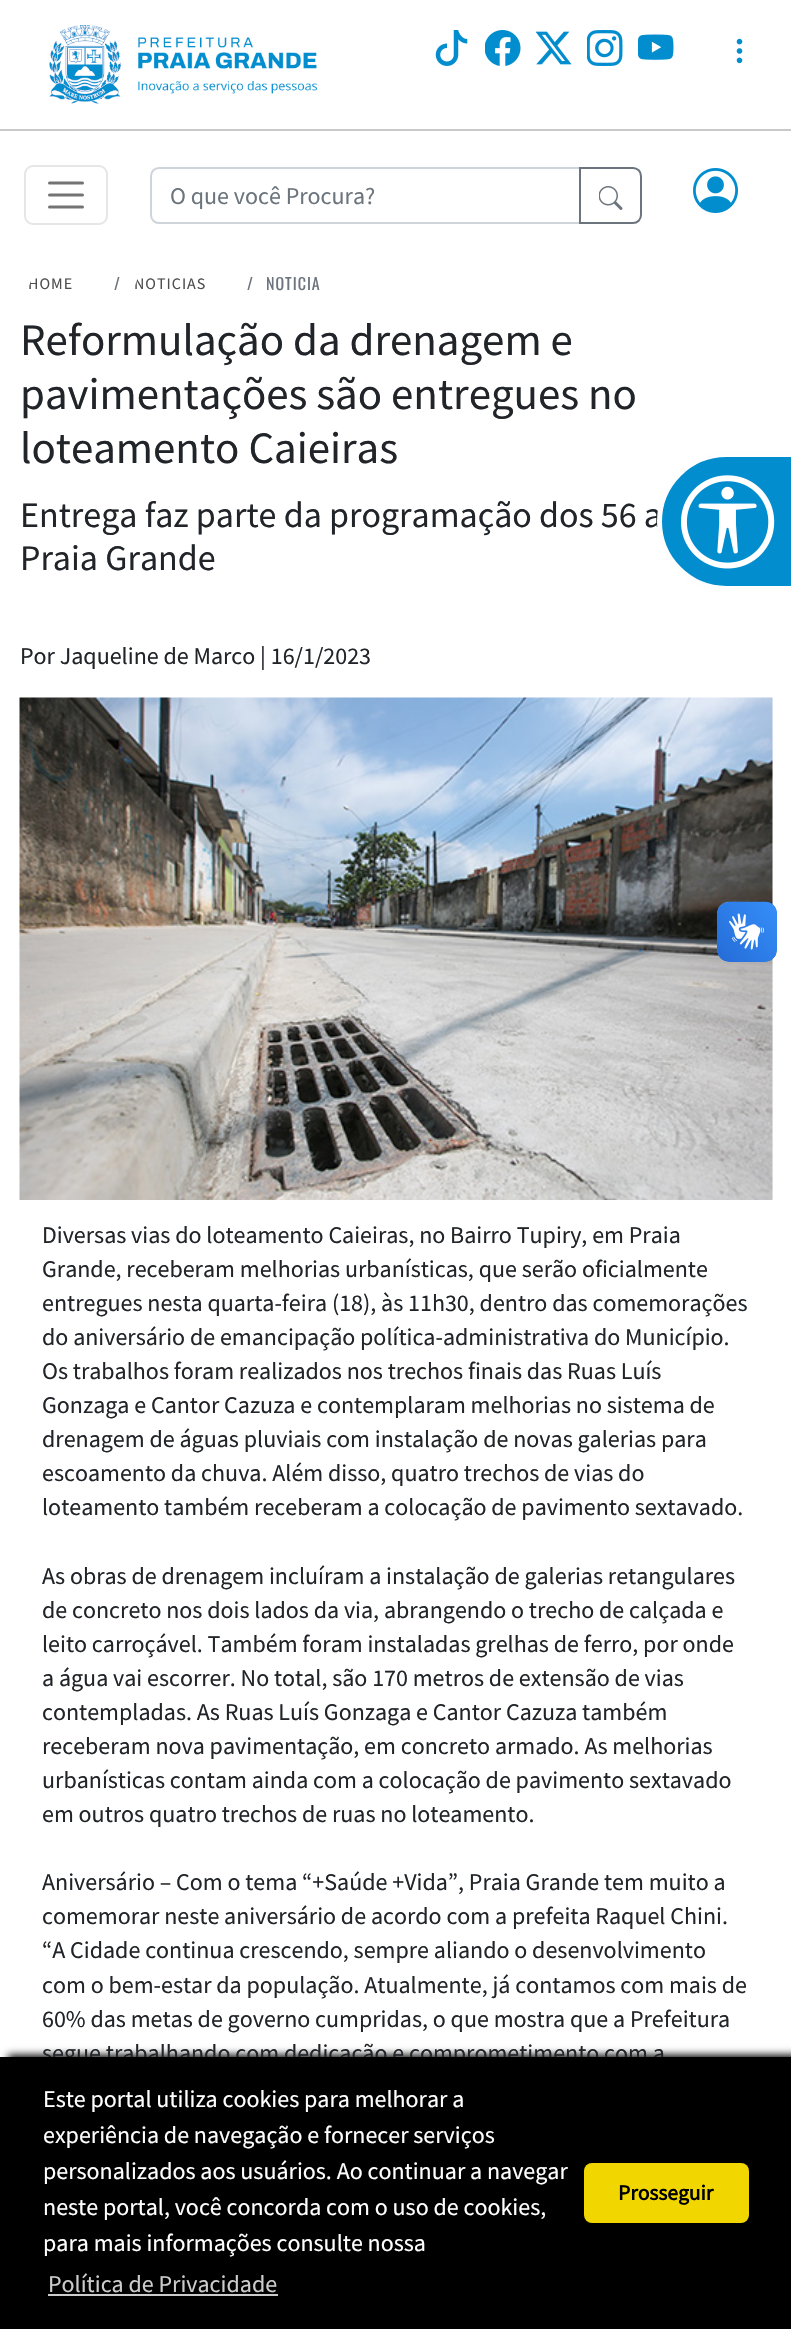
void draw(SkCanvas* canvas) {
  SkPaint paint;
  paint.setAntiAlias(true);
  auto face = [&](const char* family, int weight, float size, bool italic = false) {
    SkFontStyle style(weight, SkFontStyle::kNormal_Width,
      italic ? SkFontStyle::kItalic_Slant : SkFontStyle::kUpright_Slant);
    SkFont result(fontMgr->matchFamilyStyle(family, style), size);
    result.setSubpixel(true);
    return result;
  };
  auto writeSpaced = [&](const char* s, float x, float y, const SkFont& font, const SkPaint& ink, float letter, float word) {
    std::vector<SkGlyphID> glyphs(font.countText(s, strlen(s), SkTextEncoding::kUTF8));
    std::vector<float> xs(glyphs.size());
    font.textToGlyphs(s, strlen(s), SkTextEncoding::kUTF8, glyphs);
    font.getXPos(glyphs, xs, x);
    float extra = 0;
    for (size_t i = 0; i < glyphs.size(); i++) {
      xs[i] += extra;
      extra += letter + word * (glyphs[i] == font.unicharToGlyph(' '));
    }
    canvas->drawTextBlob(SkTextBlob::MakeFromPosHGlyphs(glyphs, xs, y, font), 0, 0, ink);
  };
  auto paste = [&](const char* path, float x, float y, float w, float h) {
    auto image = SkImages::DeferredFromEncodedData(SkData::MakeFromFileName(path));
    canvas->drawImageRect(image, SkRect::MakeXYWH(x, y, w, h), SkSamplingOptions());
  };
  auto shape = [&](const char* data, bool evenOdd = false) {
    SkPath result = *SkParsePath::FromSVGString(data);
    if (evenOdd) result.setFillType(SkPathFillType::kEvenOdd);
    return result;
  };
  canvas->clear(0xffffffff);
  paste("img/1.png", 49, 25, 268, 79);
  paste("img/2.png", 435, 30, 33, 36);
  paste("img/3.png", 485, 30, 36, 36);
  paste("img/4.png", 536, 31, 36, 34);
  paste("img/5.png", 587, 30, 36, 36);
  paste("img/6.png", 638, 34, 36, 26);
  paste("img/7.png", 736, 38, 7, 26);
  paint.setColor(0xffc8c9ca);
  canvas->drawRect(SkRect::MakeXYWH(0, 129, 791, 2), paint);
  paint.setStroke(true);
  paint.setStrokeWidth(2);
  paint.setColor(0xffe6e6e6);
  canvas->drawRoundRect(SkRect::MakeXYWH(25, 166, 82, 58), 8, 8, paint);
  paint.setStrokeWidth(3);
  paint.setStrokeCap(SkPaint::kRound_Cap);
  paint.setColor(0xff737373);
  canvas->drawPath(shape("M49.5 183H82.5M49.5 195H82.5M49.5 207H82.5"), paint);
  paint.setStrokeWidth(2);
  paint.setStrokeCap(SkPaint::kButt_Cap);
  paint.setColor(0xffced4da);
  canvas->drawPath(shape("M159 168H580V223H159C154.5 223 151 219.5 151 215V176C151 171.5 154.5 168 159 168Z"), paint);
  paint.setColor(0xff6c757d);
  canvas->drawPath(shape("M580 168H633C637.5 168 641 171.5 641 176V215C641 219.5 637.5 223 633 223H580Z"), paint);
  paste("img/8.png", 599, 186, 24, 24);
  paste("img/9.png", 693, 168, 45, 45);
  paint.setStroke(false);
  paint.setColor(0xfff8f8f8);
  canvas->drawRect(SkRect::MakeXYWH(772, 698, 1, 502), paint);
  paste("img/10.png", 19, 697, 754, 503);
  paste("img/12.png", 717, 901, 60, 61);
  paste("img/13.png", 717, 902, 60, 60);
  paint.setColor(0xff000000);
  paint.setMaskFilter(SkMaskFilter::MakeBlur(kNormal_SkBlurStyle, 4));
  canvas->drawRect(SkRect::MakeXYWH(8, 2055, 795, 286), paint);
  paint.setMaskFilter(nullptr);
  auto f0 = face("Source Sans Pro", 400, 24);
  paint.setColor(0xff6c757d);
  canvas->drawString("O que você Procura?", 170, 204, f0, paint);
  canvas->save();
  canvas->clipPath(shape("M34.5 272H79L70 295H25.5Z"), true);
  auto f1 = face("Source Sans Pro", 400, 16);
  paint.setColor(0xff4e4e4e);
  writeSpaced("HOME", 28, 289, f1, paint, 1, 0);
  canvas->restore();
  auto f2 = face("Oswald", 400, 16);
  paint.setColor(0xff6c757d);
  writeSpaced("/", 114, 290, f2, paint, 1, 0);
  canvas->save();
  canvas->clipPath(shape("M140 272H212.5L203.5 295H131.5Z"), true);
  paint.setColor(0xff4e4e4e);
  writeSpaced("NOTICIAS", 134, 289, f1, paint, 1, 0);
  canvas->restore();
  paint.setColor(0xff6c757d);
  writeSpaced("/", 247, 290, f2, paint, 1, 0);
  writeSpaced("NOTICIA", 266, 290, f2, paint, 1, 0);
  auto f3 = face("Source Sans Pro", 400, 44.9f);
  paint.setColor(0xff212529);
  {
    const struct { const char* s; float x, y; } items[] = {
      {"Reformulação da drenagem e", 20, 355},
      {"pavimentações são entregues no", 20, 409},
      {"loteamento Caieiras", 20, 463},
    };
    for (auto [s, x, y] : items) {
      canvas->drawString(s, x, y, f3, paint);
    }
  }
  auto f4 = face("Source Sans Pro", 400, 36);
  canvas->drawString("Entrega faz parte da programação dos 56 a", 20, 527, f4, paint);
  canvas->drawString("Praia Grande", 20, 570, f4, paint);
  {
    const struct { const char* s; float x, y; } items[] = {
      {"Por Jaqueline de Marco | 16/1/2023", 20, 664},
      {"Diversas vias do loteamento Caieiras, no Bairro Tupiry, em Praia", 42, 1243},
      {"Grande, receberam melhorias urbanísticas, que serão oficialmente", 42, 1277},
      {"entregues nesta quarta-feira (18), às 11h30, dentro das comemorações", 42, 1311},
      {"do aniversário de emancipação política-administrativa do Município.", 42, 1345},
      {"Os trabalhos foram realizados nos trechos finais das Ruas Luís", 42, 1379},
      {"Gonzaga e Cantor Cazuza e contemplaram melhorias no sistema de", 42, 1413},
      {"drenagem de águas pluviais com instalação de novas galerias para", 42, 1447},
      {"escoamento da chuva. Além disso, quatro trechos de vias do", 42, 1481},
      {"loteamento também receberam a colocação de pavimento sextavado.", 42, 1515},
      {"As obras de drenagem incluíram a instalação de galerias retangulares", 42, 1584},
      {"de concreto nos dois lados da via, abrangendo o trecho de calçada e", 42, 1618},
      {"leito carroçável. Também foram instaladas grelhas de ferro, por onde", 42, 1652},
      {"a água vai escorrer. No total, são 170 metros de extensão de vias", 42, 1686},
      {"contempladas. As Ruas Luís Gonzaga e Cantor Cazuza também", 42, 1720},
      {"receberam nova pavimentação, em concreto armado. As melhorias", 42, 1754},
      {"urbanísticas contam ainda com a colocação de pavimento sextavado", 42, 1788},
      {"em outros quatro trechos de ruas no loteamento.", 42, 1822},
      {"Aniversário – Com o tema “+Saúde +Vida”, Praia Grande tem muito a", 42, 1890},
      {"comemorar neste aniversário de acordo com a prefeita Raquel Chini.", 42, 1924},
      {"“A Cidade continua crescendo, sempre aliando o desenvolvimento", 42, 1958},
      {"com o bem-estar da população. Atualmente, já contamos com mais de", 42, 1993},
      {"60% das metas de governo cumpridas, o que mostra que a Prefeitura", 42, 2027},
      {"segue trabalhando com dedicação e comprometimento com a", 42, 2061},
    };
    for (auto [s, x, y] : items) {
      canvas->drawString(s, x, y, f0, paint);
    }
  }
  paint.setColor(0xff028dcf);
  canvas->drawRoundRect(SkRect::MakeXYWH(659.5f, 454.5f, 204, 134), 67, 67, paint);
  paint.setStroke(true);
  paint.setStrokeWidth(5);
  paint.setColor(0xfffefefe);
  canvas->drawRoundRect(SkRect::MakeXYWH(659.5f, 454.5f, 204, 134), 67, 67, paint);
  paste("img/11.png", 681, 475, 94, 94);
  paint.setStroke(false);
  paint.setColor(0xff000000);
  canvas->drawRect(SkRect::MakeXYWH(0, 2057, 791, 272), paint);
  paint.setColor(0xffffffff);
  {
    const struct { const char* s; float x, y; } items[] = {
      {"Este portal utiliza cookies para melhorar a", 43, 2107},
      {"experiência de navegação e fornecer serviços", 43, 2143},
      {"personalizados aos usuários. Ao continuar a navegar", 43, 2179},
      {"neste portal, você concorda com o uso de cookies,", 43, 2215},
      {"para mais informações consulte nossa", 43, 2251},
    };
    for (auto [s, x, y] : items) {
      canvas->drawString(s, x, y, f0, paint);
    }
  }
  paint.setColor(0xffcccccc);
  canvas->drawString("Política de Privacidade", 48, 2292, f0, paint);
  canvas->drawRect(SkRect::MakeXYWH(48, 2294, 230, 2), paint);
  paint.setColor(0xfff1d600);
  canvas->drawRoundRect(SkRect::MakeXYWH(584, 2163, 165, 60), 8, 8, paint);
  auto f5 = face("Source Sans Pro", 700, 21.5f);
  paint.setColor(0xff000000);
  canvas->drawString("Prosseguir", 618, 2200, f5, paint);
}
